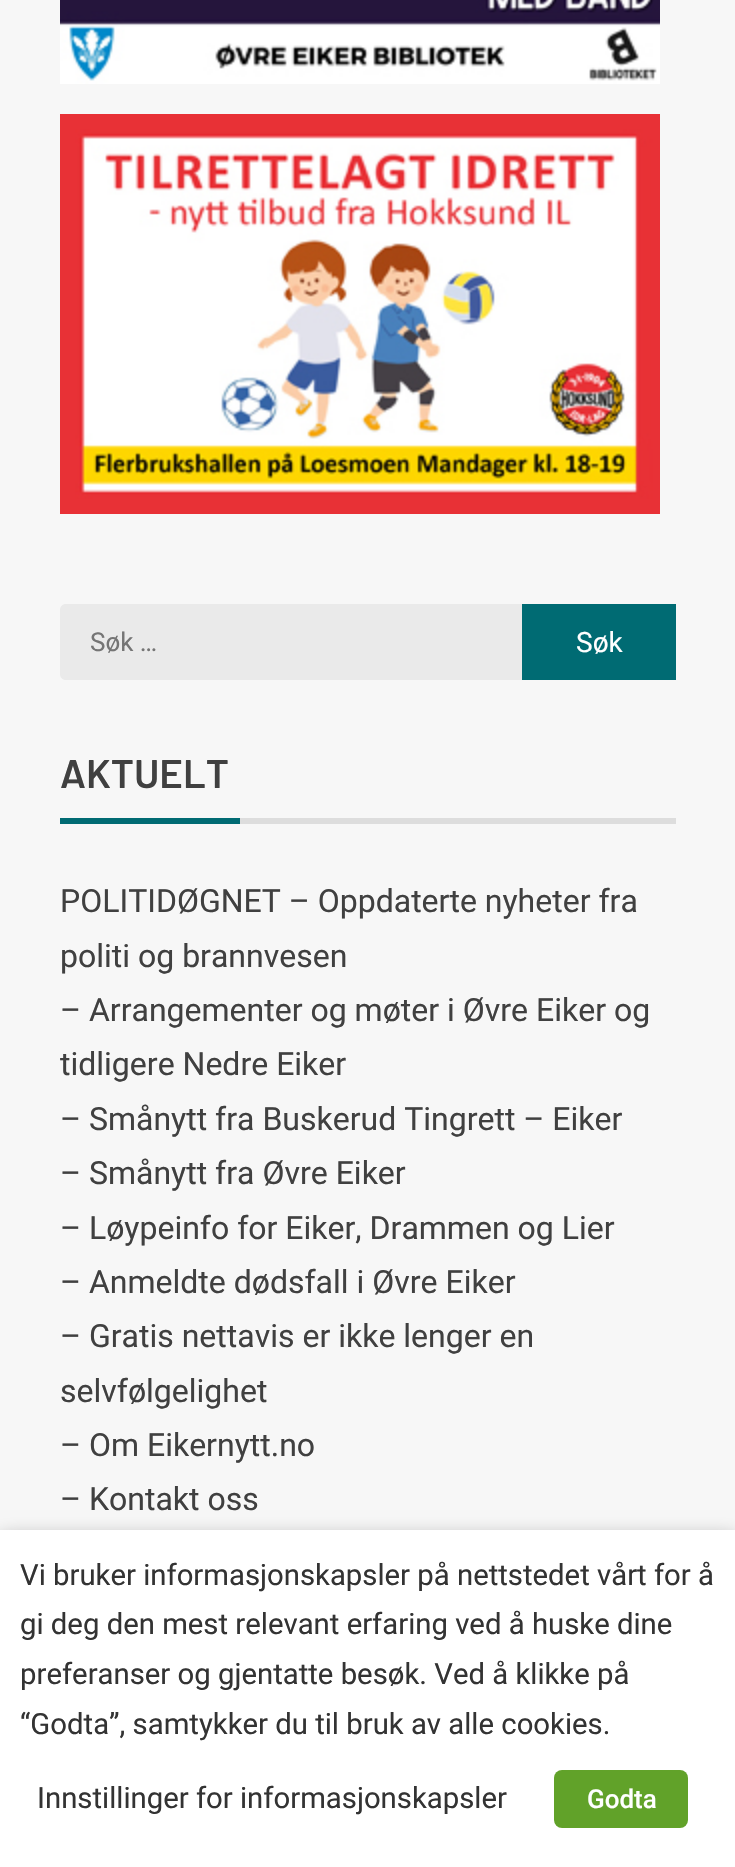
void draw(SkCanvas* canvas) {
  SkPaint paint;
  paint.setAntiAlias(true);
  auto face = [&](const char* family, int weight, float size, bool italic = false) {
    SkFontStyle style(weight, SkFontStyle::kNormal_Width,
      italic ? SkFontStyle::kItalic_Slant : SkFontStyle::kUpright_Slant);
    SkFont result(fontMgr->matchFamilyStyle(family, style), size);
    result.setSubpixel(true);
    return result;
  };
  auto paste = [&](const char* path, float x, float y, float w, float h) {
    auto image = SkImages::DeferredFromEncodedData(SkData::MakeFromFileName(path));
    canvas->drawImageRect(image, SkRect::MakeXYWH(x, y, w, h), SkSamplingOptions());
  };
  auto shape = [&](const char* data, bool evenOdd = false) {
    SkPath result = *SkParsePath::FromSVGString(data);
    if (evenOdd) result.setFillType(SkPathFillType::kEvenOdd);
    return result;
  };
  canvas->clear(0xfff7f7f7);
  paste("img/1.png", 60, 0, 600, 84);
  paste("img/2.png", 60, 114, 600, 400);
  paint.setColor(0xffeaeaea);
  canvas->drawPath(shape("M66 604H522V680H66C62.5 680 60 677.5 60 674V610C60 606.5 62.5 604 66 604Z"), paint);
  {
    const struct { float x, y, w, h; SkColor color; } items[] = {
      {522, 604, 154, 76, 0xff006b73},
      {60, 818, 180, 6, 0xff006b73},
      {240, 818, 436, 6, 0xffdddddd},
    };
    for (auto [x, y, w, h, color] : items) {
      paint.setColor(color);
      canvas->drawRect(SkRect::MakeXYWH(x, y, w, h), paint);
    }
  }
  paint.setColor(0x80000000);
  paint.setMaskFilter(SkMaskFilter::MakeBlur(kNormal_SkBlurStyle, 10));
  canvas->drawRect(SkRect::MakeXYWH(0, 1540, 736, 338), paint);
  paint.setMaskFilter(nullptr);
  paint.setColor(0xffffffff);
  canvas->drawRect(SkRect::MakeXYWH(0, 1530, 735, 337), paint);
  paint.setColor(0xff61a229);
  canvas->drawRoundRect(SkRect::MakeXYWH(554, 1770, 134, 58), 8, 8, paint);
  auto f0 = face("Roboto", 400, 26);
  paint.setColor(0xff757575);
  canvas->drawString("Søk …", 90, 651, f0, paint);
  auto f1 = face("Roboto", 400, 28);
  paint.setColor(0xffffffff);
  canvas->drawString("Søk", 576, 652, f1, paint);
  auto f2 = face("Barlow", 600, 40);
  paint.setColor(0xff404040);
  canvas->drawString("AKTUELT", 60, 788, f2, paint);
  auto f3 = face("Roboto", 400, 32);
  {
    const struct { const char* s; float x, y; } items[] = {
      {"POLITIDØGNET – Oppdaterte nyheter fra", 60, 912},
      {"politi og brannvesen", 60, 967},
      {"– Arrangementer og møter i Øvre Eiker og", 60, 1021},
      {"tidligere Nedre Eiker", 60, 1075},
      {"– Smånytt fra Buskerud Tingrett – Eiker", 60, 1130},
      {"– Smånytt fra Øvre Eiker", 60, 1184},
      {"– Løypeinfo for Eiker, Drammen og Lier", 60, 1239},
      {"– Anmeldte dødsfall i Øvre Eiker", 60, 1293},
      {"– Gratis nettavis er ikke lenger en", 60, 1347},
      {"selvfølgelighet", 60, 1402},
      {"– Om Eikernytt.no", 60, 1456},
      {"– Kontakt oss", 60, 1510},
    };
    for (auto [s, x, y] : items) {
      canvas->drawString(s, x, y, f3, paint);
    }
  }
  auto f4 = face("Roboto", 400, 29.3f);
  paint.setColor(0xff333333);
  {
    const struct { const char* s; float x, y; } items[] = {
      {"Vi bruker informasjonskapsler på nettstedet vårt for å", 20, 1585},
      {"gi deg den mest relevant erfaring ved å huske dine", 20, 1634},
      {"preferanser og gjentatte besøk. Ved å klikke på", 20, 1684},
      {"“Godta”, samtykker du til bruk av alle cookies.", 20, 1734},
      {"Innstillinger for informasjonskapsler", 37, 1808},
    };
    for (auto [s, x, y] : items) {
      canvas->drawString(s, x, y, f4, paint);
    }
  }
  auto f5 = face("Roboto", 500, 26);
  paint.setColor(0xffffffff);
  canvas->drawString("Godta", 587, 1808, f5, paint);
}
